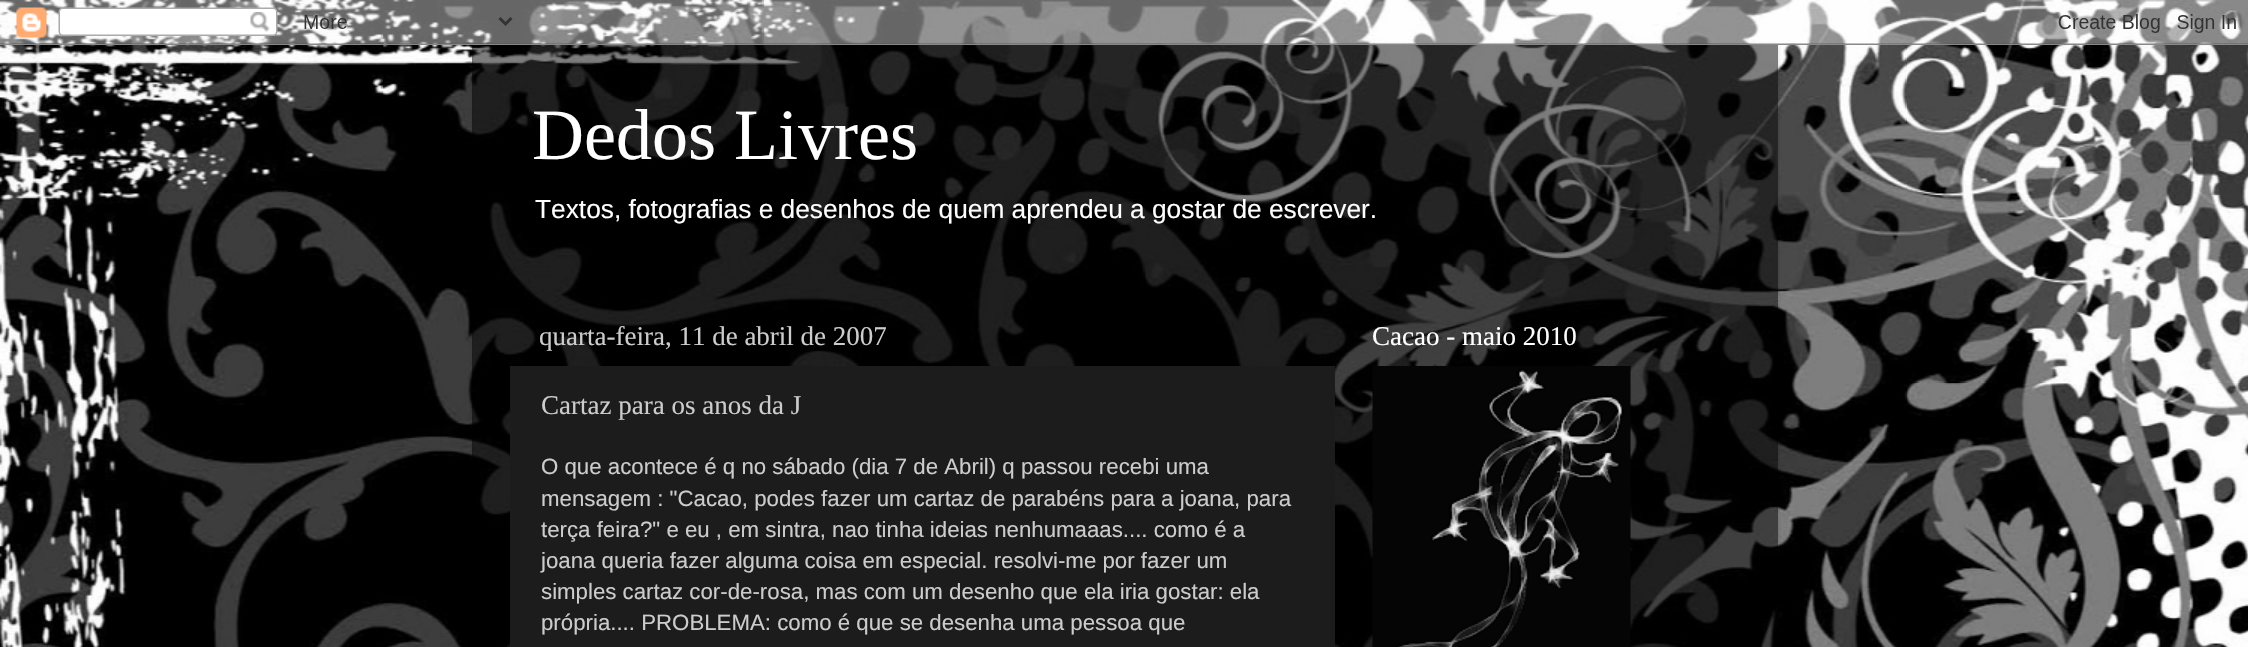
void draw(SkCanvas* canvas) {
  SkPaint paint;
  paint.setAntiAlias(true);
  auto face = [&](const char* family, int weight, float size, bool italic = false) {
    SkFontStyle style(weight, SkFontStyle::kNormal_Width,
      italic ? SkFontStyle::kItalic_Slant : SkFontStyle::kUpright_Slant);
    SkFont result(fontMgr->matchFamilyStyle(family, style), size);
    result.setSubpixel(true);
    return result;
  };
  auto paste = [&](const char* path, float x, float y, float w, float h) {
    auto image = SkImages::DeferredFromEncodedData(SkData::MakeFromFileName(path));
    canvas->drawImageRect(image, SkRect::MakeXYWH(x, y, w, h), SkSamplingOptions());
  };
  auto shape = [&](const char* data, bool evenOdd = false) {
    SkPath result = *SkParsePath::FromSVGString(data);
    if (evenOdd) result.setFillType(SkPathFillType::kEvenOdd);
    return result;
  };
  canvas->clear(0xffffffff);
  paste("img/1.png", 0, 0, 2248, 647);
  canvas->save();
  canvas->clipPath(shape("M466 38H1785V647H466ZM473 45H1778V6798H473Z", true), true);
  paint.setColor(0x26000000);
  paint.setMaskFilter(SkMaskFilter::MakeBlur(kNormal_SkBlurStyle, 2));
  canvas->drawRect(SkRect::MakeXYWH(473, 45, 1305, 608), paint);
  paint.setMaskFilter(nullptr);
  canvas->restore();
  paste("img/2.png", 0, 0, 2248, 45);
  paint.setColor(0x80000000);
  canvas->drawRect(SkRect::MakeXYWH(472, 45, 1306, 602), paint);
  paint.setColor(0xff1c1c1c);
  canvas->drawRect(SkRect::MakeXYWH(510, 366, 825, 281), paint);
  paste("img/3.png", 1372, 366, 259, 281);
  auto f0 = face("Liberation Serif", 400, 72);
  paint.setColor(0xffffffff);
  canvas->drawString("Dedos Livres", 532, 159, f0, paint);
  auto f1 = face("Liberation Sans", 400, 26.3f);
  canvas->drawString("Textos, fotografias e desenhos de quem aprendeu a gostar de escrever.", 535, 218, f1, paint);
  auto f2 = face("Liberation Serif", 400, 27);
  paint.setColor(0xffcccccc);
  canvas->drawString("quarta-feira, 11 de abril de 2007", 539, 345, f2, paint);
  canvas->drawString("Cartaz para os anos da J", 541, 414, f2, paint);
  auto f3 = face("Liberation Sans", 400, 22.25f);
  {
    const struct { const char* s; float x, y; } items[] = {
      {"O que acontece é q no sábado (dia 7 de Abril) q passou recebi uma", 541, 474},
      {"mensagem : \"Cacao, podes fazer um cartaz de parabéns para a joana, para", 541, 506},
      {"terça feira?\" e eu , em sintra, nao tinha ideias nenhumaaas.... como é a", 541, 537},
      {"joana queria fazer alguma coisa em especial. resolvi-me por fazer um", 541, 568},
      {"simples cartaz cor-de-rosa, mas com um desenho que ela iria gostar: ela", 541, 599},
      {"própria.... PROBLEMA: como é que se desenha uma pessoa que", 541, 630},
    };
    for (auto [s, x, y] : items) {
      canvas->drawString(s, x, y, f3, paint);
    }
  }
  paint.setColor(0xffffffff);
  canvas->drawString("Cacao - maio 2010", 1372, 345, f2, paint);
}
